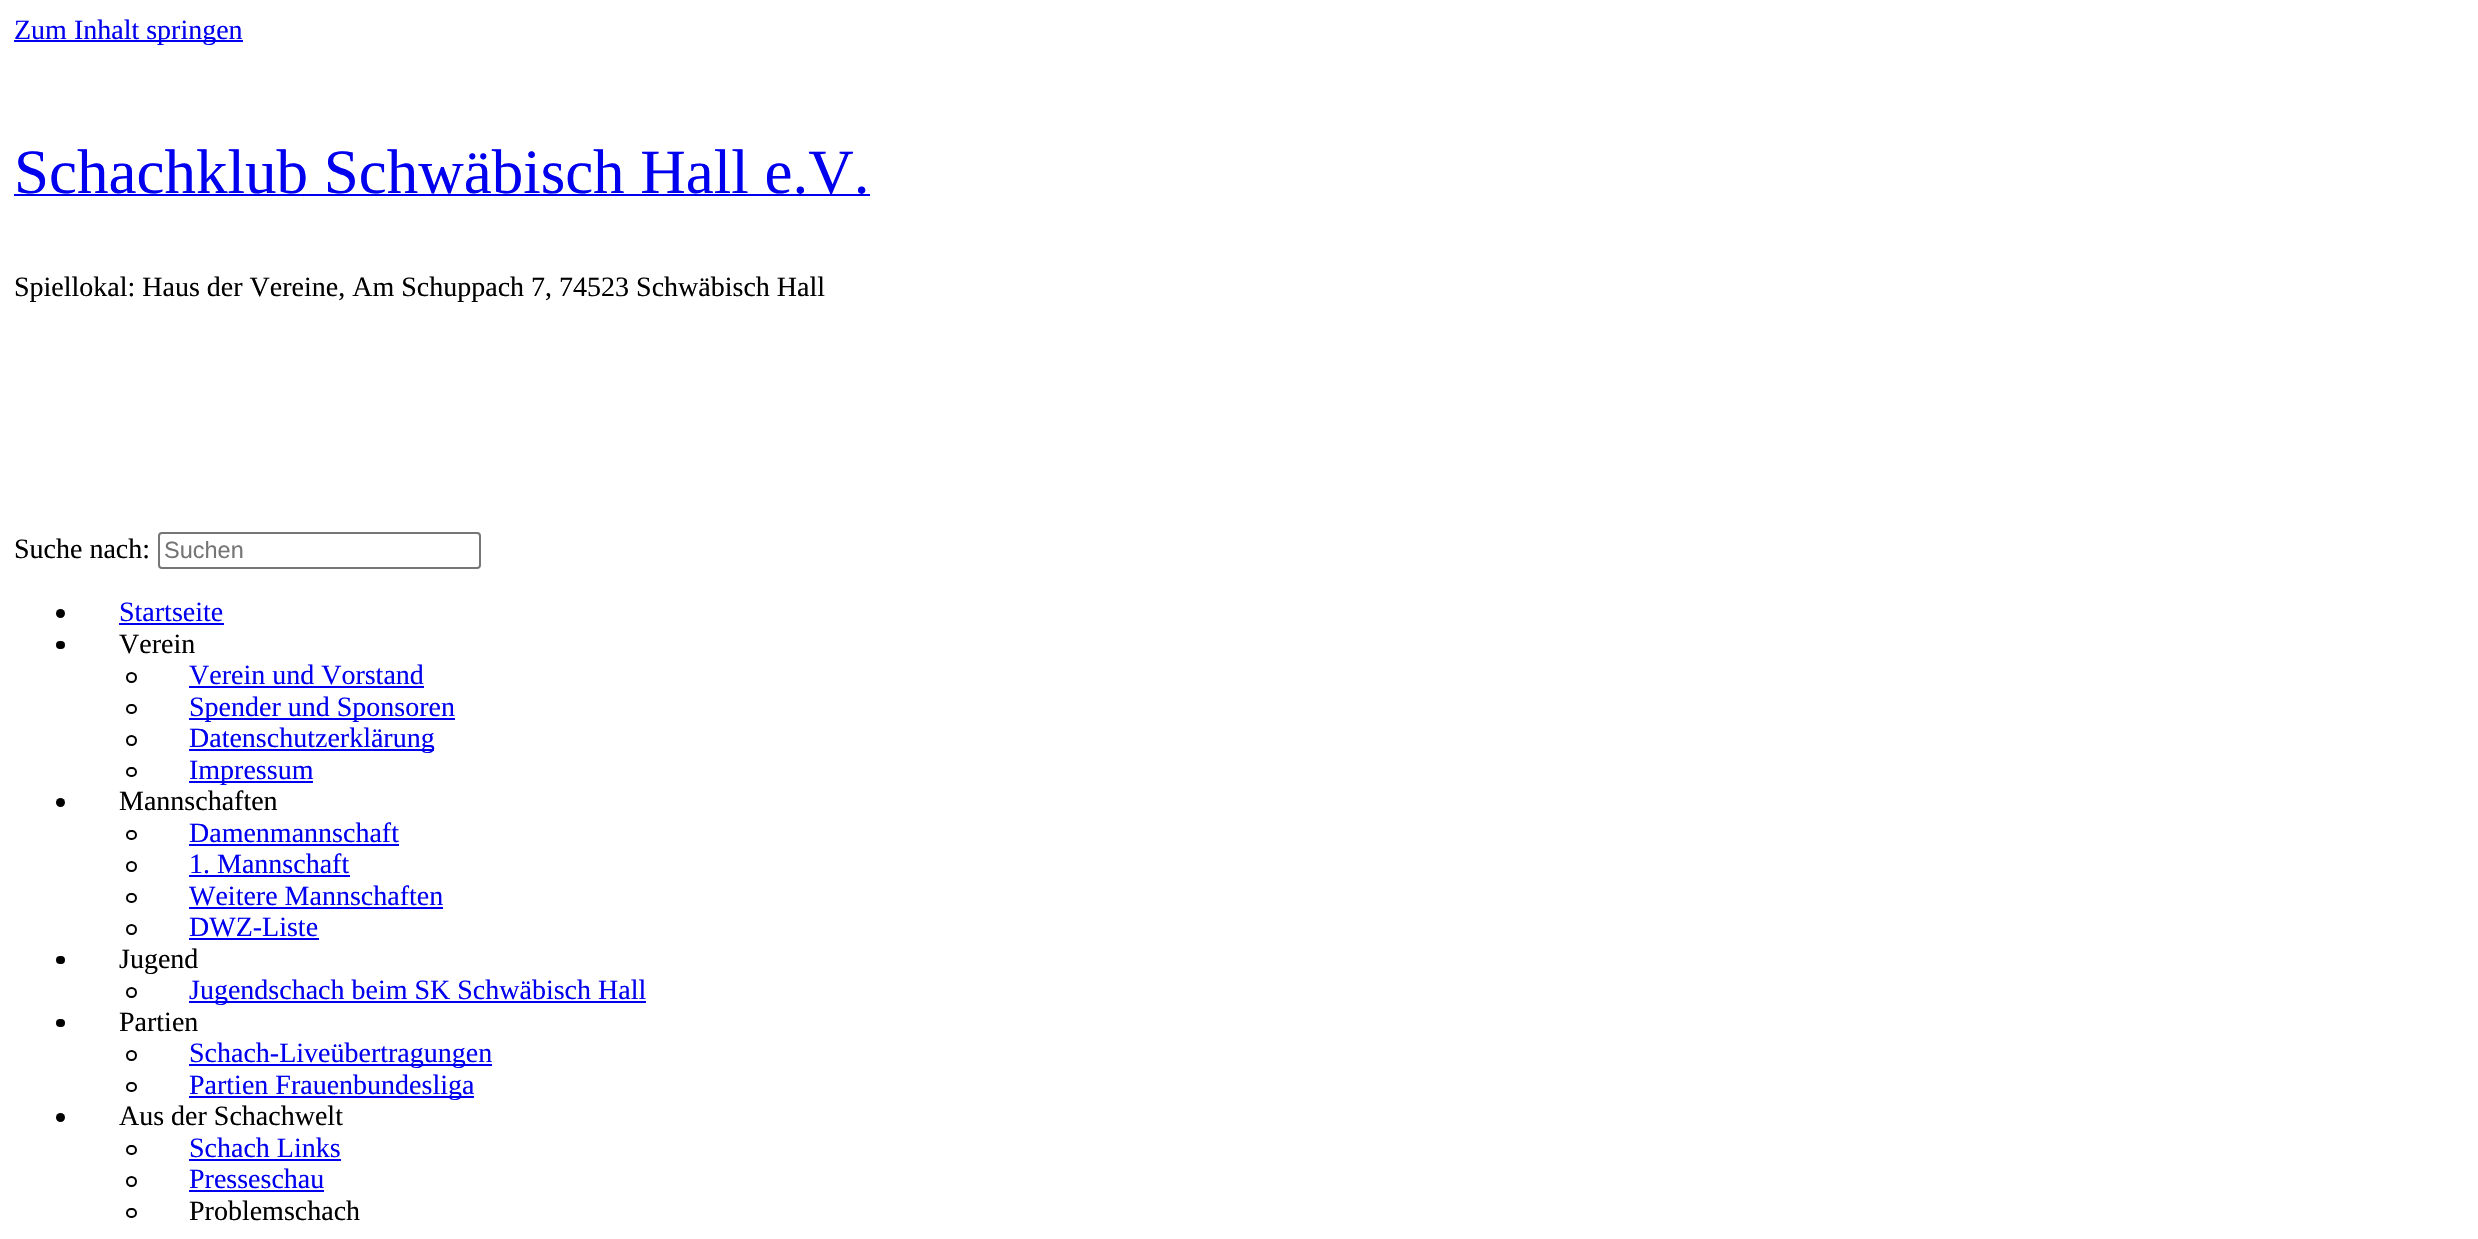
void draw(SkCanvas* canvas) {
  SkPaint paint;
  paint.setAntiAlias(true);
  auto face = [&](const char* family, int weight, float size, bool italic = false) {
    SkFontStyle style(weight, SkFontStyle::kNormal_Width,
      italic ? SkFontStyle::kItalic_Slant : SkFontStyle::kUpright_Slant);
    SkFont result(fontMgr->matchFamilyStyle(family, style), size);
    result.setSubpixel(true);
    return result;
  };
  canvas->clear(0xffffffff);
  paint.setColor(0xff0000ee);
  canvas->drawRect(SkRect::MakeXYWH(14, 40, 229, 2), paint);
  canvas->drawRect(SkRect::MakeXYWH(14, 194, 856, 2), paint);
  paint.setStroke(true);
  paint.setStrokeWidth(2);
  paint.setColor(0xff767676);
  canvas->drawRoundRect(SkRect::MakeXYWH(159, 533, 321, 35), 3, 3, paint);
  paint.setStroke(false);
  paint.setColor(0xff000000);
  canvas->drawCircle(60.5f, 613.5f, 4.5f, paint);
  paint.setColor(0xff0000ee);
  canvas->drawRect(SkRect::MakeXYWH(119, 623, 105, 2), paint);
  paint.setColor(0xff000000);
  canvas->drawRoundRect(SkRect::MakeXYWH(56, 641, 9, 8), 4, 4, paint);
  paint.setStroke(true);
  canvas->drawCircle(131.5f, 677.5f, 4.5f, paint);
  paint.setStroke(false);
  paint.setColor(0xff0000ee);
  canvas->drawRect(SkRect::MakeXYWH(189, 686, 235, 2), paint);
  paint.setStroke(true);
  paint.setColor(0xff000000);
  canvas->drawRoundRect(SkRect::MakeXYWH(127, 705, 9, 8), 4, 4, paint);
  paint.setStroke(false);
  paint.setColor(0xff0000ee);
  canvas->drawRect(SkRect::MakeXYWH(189, 718, 266, 2), paint);
  paint.setStroke(true);
  paint.setColor(0xff000000);
  canvas->drawCircle(131.5f, 740.5f, 4.5f, paint);
  paint.setStroke(false);
  paint.setColor(0xff0000ee);
  canvas->drawRect(SkRect::MakeXYWH(189, 749, 245, 2), paint);
  paint.setStroke(true);
  paint.setColor(0xff000000);
  canvas->drawRoundRect(SkRect::MakeXYWH(127, 768, 9, 8), 4, 4, paint);
  paint.setStroke(false);
  paint.setColor(0xff0000ee);
  canvas->drawRect(SkRect::MakeXYWH(189, 781, 124, 2), paint);
  paint.setColor(0xff000000);
  canvas->drawCircle(60.5f, 802.5f, 4.5f, paint);
  paint.setStroke(true);
  canvas->drawRoundRect(SkRect::MakeXYWH(127, 831, 9, 8), 4, 4, paint);
  paint.setStroke(false);
  paint.setColor(0xff0000ee);
  canvas->drawRect(SkRect::MakeXYWH(189, 844, 210, 2), paint);
  paint.setStroke(true);
  paint.setColor(0xff000000);
  canvas->drawCircle(131.5f, 866.5f, 4.5f, paint);
  paint.setStroke(false);
  paint.setColor(0xff0000ee);
  canvas->drawRect(SkRect::MakeXYWH(189, 875, 161, 2), paint);
  paint.setStroke(true);
  paint.setColor(0xff000000);
  canvas->drawRoundRect(SkRect::MakeXYWH(127, 894, 9, 8), 4, 4, paint);
  paint.setStroke(false);
  paint.setColor(0xff0000ee);
  canvas->drawRect(SkRect::MakeXYWH(189, 907, 254, 2), paint);
  paint.setStroke(true);
  paint.setColor(0xff000000);
  canvas->drawCircle(131.5f, 929.5f, 4.5f, paint);
  paint.setStroke(false);
  paint.setColor(0xff0000ee);
  canvas->drawRect(SkRect::MakeXYWH(189, 938, 130, 2), paint);
  paint.setColor(0xff000000);
  canvas->drawRoundRect(SkRect::MakeXYWH(56, 956, 9, 8), 4, 4, paint);
  paint.setStroke(true);
  canvas->drawCircle(131.5f, 992.5f, 4.5f, paint);
  paint.setStroke(false);
  paint.setColor(0xff0000ee);
  canvas->drawRect(SkRect::MakeXYWH(189, 1001, 457, 2), paint);
  paint.setColor(0xff000000);
  canvas->drawRoundRect(SkRect::MakeXYWH(56, 1019, 9, 8), 4, 4, paint);
  paint.setStroke(true);
  canvas->drawCircle(131.5f, 1055.5f, 4.5f, paint);
  paint.setStroke(false);
  paint.setColor(0xff0000ee);
  canvas->drawRect(SkRect::MakeXYWH(189, 1064, 303, 2), paint);
  paint.setStroke(true);
  paint.setColor(0xff000000);
  canvas->drawRoundRect(SkRect::MakeXYWH(127, 1083, 9, 8), 4, 4, paint);
  paint.setStroke(false);
  paint.setColor(0xff0000ee);
  canvas->drawRect(SkRect::MakeXYWH(189, 1096, 285, 2), paint);
  paint.setColor(0xff000000);
  canvas->drawCircle(60.5f, 1117.5f, 4.5f, paint);
  paint.setStroke(true);
  canvas->drawRoundRect(SkRect::MakeXYWH(127, 1146, 9, 8), 4, 4, paint);
  paint.setStroke(false);
  paint.setColor(0xff0000ee);
  canvas->drawRect(SkRect::MakeXYWH(189, 1159, 152, 2), paint);
  paint.setStroke(true);
  paint.setColor(0xff000000);
  canvas->drawCircle(131.5f, 1181.5f, 4.5f, paint);
  paint.setStroke(false);
  paint.setColor(0xff0000ee);
  canvas->drawRect(SkRect::MakeXYWH(189, 1190, 135, 2), paint);
  paint.setStroke(true);
  paint.setColor(0xff000000);
  canvas->drawRoundRect(SkRect::MakeXYWH(127, 1209, 9, 8), 4, 4, paint);
  auto f0 = face("Liberation Serif", 400, 28);
  paint.setStroke(false);
  paint.setColor(0xff0000ee);
  canvas->drawString("Zum Inhalt springen", 14, 39, f0, paint);
  auto f1 = face("Liberation Serif", 400, 63);
  canvas->drawString("Schachklub Schwäbisch Hall e.V.", 14, 193, f1, paint);
  paint.setColor(0xff000000);
  canvas->drawString("Spiellokal: Haus der Vereine, Am Schuppach 7, 74523 Schwäbisch Hall", 14, 296, f0, paint);
  canvas->drawString("Suche nach:", 14, 558, f0, paint);
  auto f2 = face("Liberation Sans", 400, 23.5f);
  paint.setColor(0xff757575);
  canvas->drawString("Suchen", 164, 558, f2, paint);
  paint.setColor(0xff0000ee);
  canvas->drawString("Startseite", 119, 621, f0, paint);
  paint.setColor(0xff000000);
  canvas->drawString("Verein", 119, 653, f0, paint);
  paint.setColor(0xff0000ee);
  {
    const struct { const char* s; float x, y; } items[] = {
      {"Verein und Vorstand", 189, 684},
      {"Spender und Sponsoren", 189, 716},
      {"Datenschutzerklärung", 189, 747},
      {"Impressum", 189, 779},
    };
    for (auto [s, x, y] : items) {
      canvas->drawString(s, x, y, f0, paint);
    }
  }
  paint.setColor(0xff000000);
  canvas->drawString("Mannschaften", 119, 810, f0, paint);
  paint.setColor(0xff0000ee);
  {
    const struct { const char* s; float x, y; } items[] = {
      {"Damenmannschaft", 189, 842},
      {"1. Mannschaft", 189, 873},
      {"Weitere Mannschaften", 189, 905},
      {"DWZ-Liste", 189, 936},
    };
    for (auto [s, x, y] : items) {
      canvas->drawString(s, x, y, f0, paint);
    }
  }
  paint.setColor(0xff000000);
  canvas->drawString("Jugend", 119, 968, f0, paint);
  paint.setColor(0xff0000ee);
  canvas->drawString("Jugendschach beim SK Schwäbisch Hall", 189, 999, f0, paint);
  paint.setColor(0xff000000);
  canvas->drawString("Partien", 119, 1031, f0, paint);
  paint.setColor(0xff0000ee);
  canvas->drawString("Schach-Liveübertragungen", 189, 1062, f0, paint);
  canvas->drawString("Partien Frauenbundesliga", 189, 1094, f0, paint);
  paint.setColor(0xff000000);
  canvas->drawString("Aus der Schachwelt", 119, 1125, f0, paint);
  paint.setColor(0xff0000ee);
  canvas->drawString("Schach Links", 189, 1157, f0, paint);
  canvas->drawString("Presseschau", 189, 1188, f0, paint);
  paint.setColor(0xff000000);
  canvas->drawString("Problemschach", 189, 1220, f0, paint);
}
